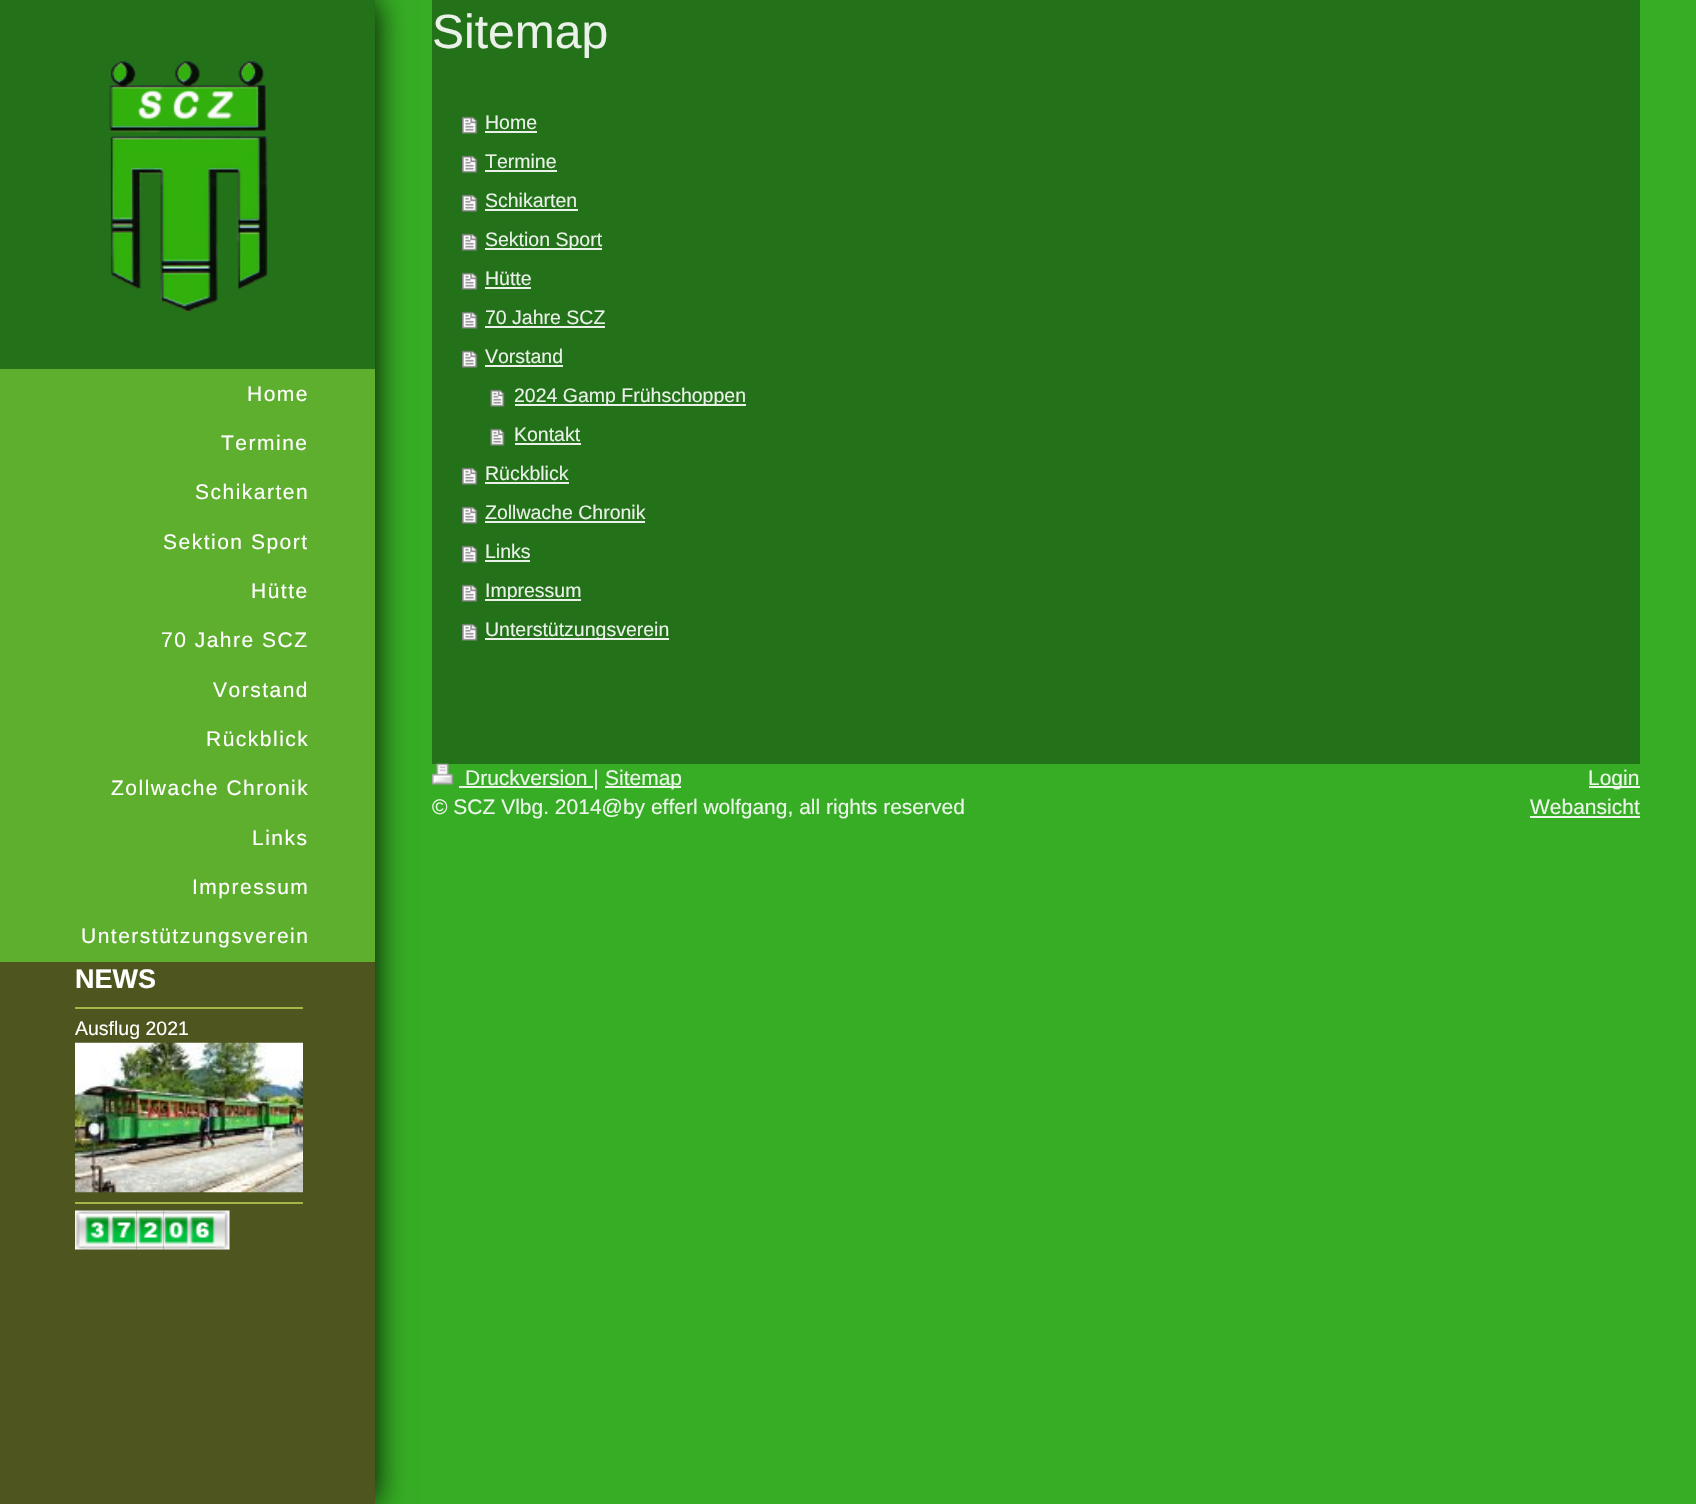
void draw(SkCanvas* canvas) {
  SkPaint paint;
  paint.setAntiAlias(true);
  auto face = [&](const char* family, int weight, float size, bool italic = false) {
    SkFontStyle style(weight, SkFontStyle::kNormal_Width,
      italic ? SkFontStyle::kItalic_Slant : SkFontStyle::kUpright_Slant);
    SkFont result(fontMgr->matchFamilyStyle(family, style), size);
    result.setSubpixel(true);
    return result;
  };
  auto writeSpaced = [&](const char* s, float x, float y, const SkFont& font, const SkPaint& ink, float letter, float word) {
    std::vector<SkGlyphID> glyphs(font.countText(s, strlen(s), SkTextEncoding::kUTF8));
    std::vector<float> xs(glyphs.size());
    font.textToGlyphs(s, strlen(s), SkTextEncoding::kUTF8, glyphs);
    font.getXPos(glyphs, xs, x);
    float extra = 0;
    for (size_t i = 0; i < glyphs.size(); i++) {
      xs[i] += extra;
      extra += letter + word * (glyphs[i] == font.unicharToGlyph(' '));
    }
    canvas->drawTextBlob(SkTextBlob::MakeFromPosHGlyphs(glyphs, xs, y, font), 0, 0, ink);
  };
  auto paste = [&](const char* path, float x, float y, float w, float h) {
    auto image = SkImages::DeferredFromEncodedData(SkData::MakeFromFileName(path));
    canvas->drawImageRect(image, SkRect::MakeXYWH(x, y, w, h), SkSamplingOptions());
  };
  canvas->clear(0xff36ad24);
  paint.setColor(0xff000000);
  paint.setMaskFilter(SkMaskFilter::MakeBlur(kNormal_SkBlurStyle, 15));
  canvas->drawRect(SkRect::MakeXYWH(0, 0, 375, 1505), paint);
  paint.setMaskFilter(nullptr);
  paint.setColor(0xff4e551e);
  canvas->drawRect(SkRect::MakeXYWH(0, 962, 375, 542), paint);
  paint.setColor(0xff237219);
  canvas->drawRect(SkRect::MakeXYWH(432, 0, 1208, 764), paint);
  paste("img/1.png", 462, 116, 16, 18);
  paint.setColor(0xffe9f1e8);
  canvas->drawRect(SkRect::MakeXYWH(485, 131, 52, 2), paint);
  paste("img/1.png", 462, 155, 16, 18);
  canvas->drawRect(SkRect::MakeXYWH(485, 170, 72, 2), paint);
  paste("img/1.png", 462, 194, 16, 18);
  canvas->drawRect(SkRect::MakeXYWH(485, 209, 93, 2), paint);
  paste("img/1.png", 462, 233, 16, 18);
  canvas->drawRect(SkRect::MakeXYWH(485, 248, 117, 2), paint);
  paste("img/1.png", 462, 272, 16, 18);
  canvas->drawRect(SkRect::MakeXYWH(485, 287, 46, 2), paint);
  paste("img/1.png", 462, 311, 16, 18);
  canvas->drawRect(SkRect::MakeXYWH(485, 326, 120, 2), paint);
  paste("img/1.png", 462, 350, 16, 18);
  canvas->drawRect(SkRect::MakeXYWH(485, 365, 78, 2), paint);
  paste("img/2.png", 490, 389, 15, 18);
  canvas->drawRect(SkRect::MakeXYWH(515, 404, 231, 2), paint);
  paste("img/2.png", 490, 428, 15, 18);
  canvas->drawRect(SkRect::MakeXYWH(515, 443, 66, 2), paint);
  paste("img/1.png", 462, 467, 16, 18);
  canvas->drawRect(SkRect::MakeXYWH(485, 482, 84, 2), paint);
  paste("img/1.png", 462, 506, 16, 18);
  canvas->drawRect(SkRect::MakeXYWH(485, 521, 160, 2), paint);
  paste("img/1.png", 462, 545, 16, 18);
  canvas->drawRect(SkRect::MakeXYWH(485, 560, 45, 2), paint);
  paste("img/1.png", 462, 584, 16, 18);
  canvas->drawRect(SkRect::MakeXYWH(485, 599, 96, 2), paint);
  paste("img/1.png", 462, 623, 16, 18);
  canvas->drawRect(SkRect::MakeXYWH(485, 638, 184, 2), paint);
  paste("img/3.png", 432, 763, 22, 22);
  {
    const struct { float x, y, w, h; SkColor color; } items[] = {
      {459, 786, 134, 2, 0xffebf7e9},
      {605, 786, 76, 2, 0xffebf7e9},
      {1589, 786, 51, 2, 0xffebf7e9},
      {1530, 816, 110, 2, 0xffebf7e9},
      {0, 0, 375, 369, 0xff237219},
    };
    for (auto [x, y, w, h, color] : items) {
      paint.setColor(color);
      canvas->drawRect(SkRect::MakeXYWH(x, y, w, h), paint);
    }
  }
  paste("img/4.png", 109, 60, 159, 252);
  paint.setColor(0xff5eaf2e);
  canvas->drawRect(SkRect::MakeXYWH(0, 369, 375, 593), paint);
  paint.setColor(0xffa7b548);
  canvas->drawRect(SkRect::MakeXYWH(75, 1007, 228, 2), paint);
  paste("img/5.png", 75, 1042, 228, 151);
  canvas->drawRect(SkRect::MakeXYWH(75, 1202, 228, 2), paint);
  paste("img/6.png", 75, 1210, 9, 40);
  paste("img/7.png", 84, 1210, 27, 40);
  paste("img/8.png", 111, 1210, 26, 40);
  paste("img/9.png", 136, 1210, 28, 40);
  paste("img/10.png", 163, 1210, 26, 40);
  paste("img/11.png", 189, 1210, 27, 40);
  paste("img/12.png", 216, 1210, 14, 40);
  auto f0 = face("Liberation Sans", 400, 48);
  paint.setColor(0xffe9f1e8);
  canvas->drawString("Sitemap", 432, 48, f0, paint);
  auto f1 = face("Liberation Sans", 400, 19.5f);
  {
    const struct { const char* s; float x, y; } items[] = {
      {"Home", 485, 129},
      {"Termine", 485, 168},
      {"Schikarten", 485, 207},
      {"Sektion Sport", 485, 246},
      {"Hütte", 485, 285},
      {"70 Jahre SCZ", 485, 324},
      {"Vorstand", 485, 363},
      {"2024 Gamp Frühschoppen", 514, 402},
      {"Kontakt", 514, 441},
      {"Rückblick", 485, 480},
      {"Zollwache Chronik", 485, 519},
      {"Links", 485, 558},
      {"Impressum", 485, 597},
      {"Unterstützungsverein", 485, 636},
    };
    for (auto [s, x, y] : items) {
      canvas->drawString(s, x, y, f1, paint);
    }
  }
  auto f2 = face("Liberation Sans", 400, 21);
  paint.setColor(0xffebf7e9);
  {
    const struct { const char* s; float x, y; } items[] = {
      {"Druckversion |", 465, 785},
      {"Sitemap", 605, 785},
      {"© SCZ Vlbg. 2014@by efferl wolfgang, all rights reserved", 432, 814},
      {"Login", 1588, 785},
      {"Webansicht", 1530, 814},
    };
    for (auto [s, x, y] : items) {
      canvas->drawString(s, x, y, f2, paint);
    }
  }
  paint.setColor(0xffffffff);
  {
    const struct { const char* s; float x, y; } items[] = {
      {"Home", 247, 401},
      {"Termine", 221, 450},
      {"Schikarten", 195, 499},
      {"Sektion Sport", 163, 549},
      {"Hütte", 251, 598},
      {"70 Jahre SCZ", 161, 647},
      {"Vorstand", 213, 697},
      {"Rückblick", 206, 746},
      {"Zollwache Chronik", 111, 795},
      {"Links", 252, 845},
      {"Impressum", 192, 894},
      {"Unterstützungsverein", 81, 943},
    };
    for (auto [s, x, y] : items) {
      writeSpaced(s, x, y, f2, paint, 1.5f, 0);
    }
  }
  auto f3 = face("Liberation Sans", 700, 27);
  canvas->drawString("NEWS", 75, 988, f3, paint);
  canvas->drawString("Ausflug 2021", 75, 1035, f1, paint);
}
